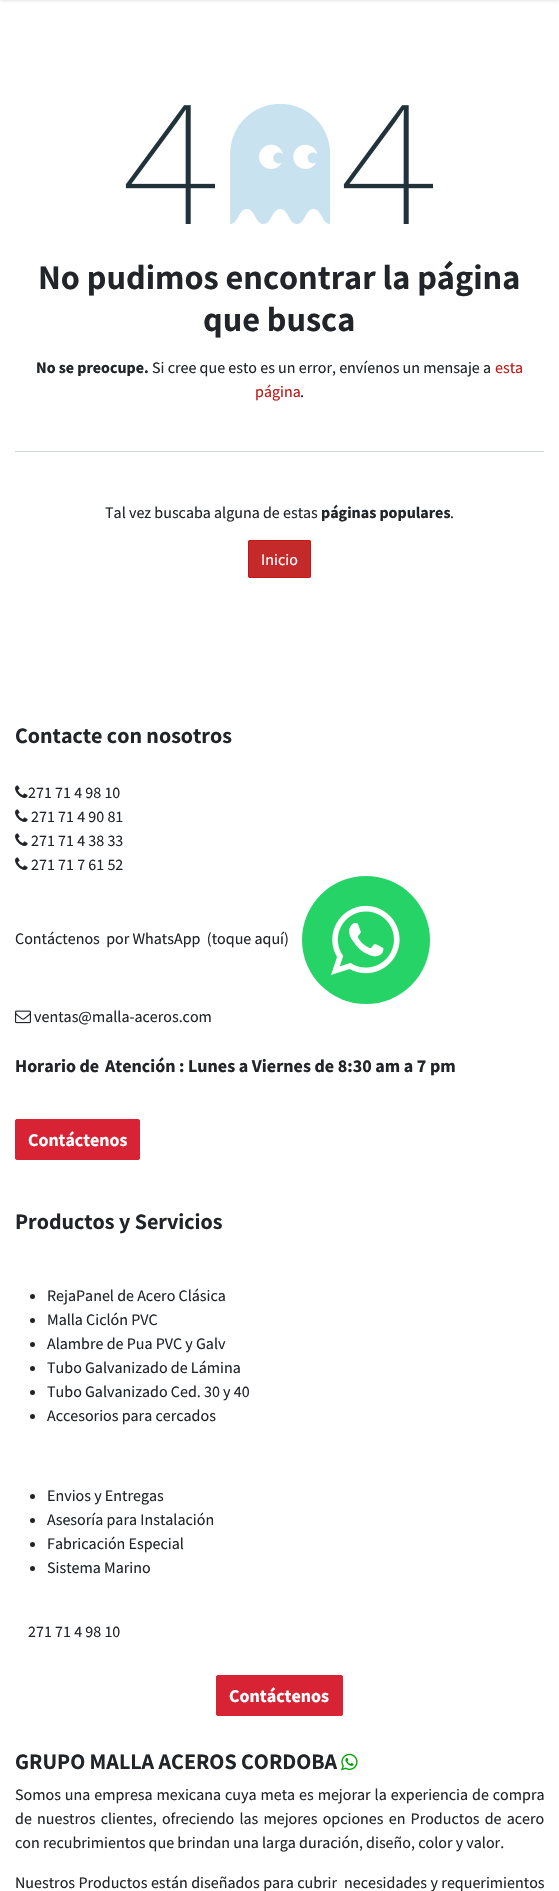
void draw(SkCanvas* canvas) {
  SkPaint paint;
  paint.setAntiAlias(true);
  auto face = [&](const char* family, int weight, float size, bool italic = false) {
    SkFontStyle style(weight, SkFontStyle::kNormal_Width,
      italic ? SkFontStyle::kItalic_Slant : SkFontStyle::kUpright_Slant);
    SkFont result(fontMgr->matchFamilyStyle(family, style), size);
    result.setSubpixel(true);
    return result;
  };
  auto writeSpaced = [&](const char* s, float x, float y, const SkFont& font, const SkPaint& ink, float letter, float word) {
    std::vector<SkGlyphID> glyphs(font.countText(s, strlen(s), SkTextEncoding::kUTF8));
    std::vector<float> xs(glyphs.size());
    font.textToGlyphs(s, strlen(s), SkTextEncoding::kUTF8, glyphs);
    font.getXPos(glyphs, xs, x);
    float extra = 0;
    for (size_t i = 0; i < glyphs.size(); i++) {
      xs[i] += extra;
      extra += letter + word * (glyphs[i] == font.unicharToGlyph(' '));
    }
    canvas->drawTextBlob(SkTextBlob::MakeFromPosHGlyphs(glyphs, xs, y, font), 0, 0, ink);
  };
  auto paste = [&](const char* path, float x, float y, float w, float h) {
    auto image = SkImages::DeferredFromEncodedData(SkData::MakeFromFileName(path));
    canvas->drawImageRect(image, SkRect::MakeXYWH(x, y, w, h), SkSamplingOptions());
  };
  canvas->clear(0xffffffff);
  paint.setColor(0x1a000000);
  paint.setMaskFilter(SkMaskFilter::MakeBlur(kNormal_SkBlurStyle, 1.5f));
  canvas->drawRect(SkRect::MakeXYWH(0, -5, 559, 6), paint);
  paint.setMaskFilter(nullptr);
  paste("img/1.png", 125, 104, 308, 120);
  paint.setColor(0xffced4da);
  canvas->drawRect(SkRect::MakeXYWH(15, 451, 529, 1), paint);
  paint.setColor(0xffc42a2a);
  canvas->drawRoundRect(SkRect::MakeXYWH(248, 540, 63, 38), 2, 2, paint);
  paint.setStroke(true);
  paint.setStrokeWidth(1);
  paint.setColor(0xebbf1818);
  canvas->drawRoundRect(SkRect::MakeXYWH(248.5f, 540.5f, 62, 37), 1.5f, 1.5f, paint);
  paste("img/2.png", 15, 785, 13, 13);
  paste("img/2.png", 15, 809, 13, 13);
  paste("img/2.png", 15, 833, 13, 13);
  paste("img/2.png", 15, 857, 13, 13);
  paint.setStroke(false);
  paint.setColor(0xff25d366);
  canvas->drawCircle(366, 940, 64, paint);
  paste("img/3.png", 331, 905, 69, 70);
  paste("img/4.png", 15, 1010, 16, 14);
  paint.setColor(0xffd72334);
  canvas->drawRoundRect(SkRect::MakeXYWH(15.5f, 1119.5f, 124, 40), 1.5f, 1.5f, paint);
  paint.setStroke(true);
  canvas->drawRoundRect(SkRect::MakeXYWH(15.5f, 1119.5f, 124, 40), 1.5f, 1.5f, paint);
  paint.setStroke(false);
  paint.setColor(0xff212529);
  canvas->drawCircle(32.5f, 1296.5f, 2.5f, paint);
  canvas->drawCircle(32.5f, 1320.5f, 2.5f, paint);
  canvas->drawCircle(32.5f, 1344.5f, 2.5f, paint);
  canvas->drawCircle(32.5f, 1368.5f, 2.5f, paint);
  canvas->drawCircle(32.5f, 1392.5f, 2.5f, paint);
  canvas->drawCircle(32.5f, 1416.5f, 2.5f, paint);
  canvas->drawCircle(32.5f, 1496.5f, 2.5f, paint);
  canvas->drawCircle(32.5f, 1520.5f, 2.5f, paint);
  canvas->drawCircle(32.5f, 1544.5f, 2.5f, paint);
  canvas->drawCircle(32.5f, 1568.5f, 2.5f, paint);
  paint.setColor(0xffd72334);
  canvas->drawRoundRect(SkRect::MakeXYWH(216.5f, 1675.5f, 126, 40), 1.5f, 1.5f, paint);
  paint.setStroke(true);
  canvas->drawRoundRect(SkRect::MakeXYWH(216.5f, 1675.5f, 126, 40), 1.5f, 1.5f, paint);
  paste("img/5.png", 341, 1753, 17, 18);
  auto f0 = face("Assistant", 700, 34.5f);
  paint.setStroke(false);
  paint.setColor(0xff212529);
  canvas->drawString("No pudimos encontrar la página", 38, 289, f0, paint);
  canvas->drawString("que busca", 203, 331, f0, paint);
  auto f1 = face("Source Sans Pro", 700, 16);
  canvas->drawString("No se preocupe.", 36, 373, f1, paint);
  auto f2 = face("Source Sans Pro", 400, 16);
  canvas->drawString("Si cree que esto es un error, envíenos un mensaje a", 152, 373, f2, paint);
  paint.setColor(0xffbf1818);
  canvas->drawString("esta", 495, 373, f2, paint);
  canvas->drawString("página", 255, 397, f2, paint);
  paint.setColor(0xff212529);
  canvas->drawString(".", 300, 397, f2, paint);
  canvas->drawString("Tal vez buscaba alguna de estas", 105, 518, f2, paint);
  canvas->drawString("páginas populares", 321, 518, f1, paint);
  canvas->drawString(".", 450, 518, f2, paint);
  paint.setColor(0xffffffff);
  canvas->drawString("Inicio", 261, 565, f2, paint);
  auto f3 = face("Assistant", 700, 22.1f);
  paint.setColor(0xff212529);
  canvas->drawString("Contacte con nosotros", 15, 743, f3, paint);
  {
    const struct { const char* s; float x, y; } items[] = {
      {"271 71 4 98 10", 28, 798},
      {"271 71 4 90 81", 31, 822},
      {"271 71 4 38 33", 31, 846},
      {"271 71 7 61 52", 31, 870},
      {"Contáctenos  por WhatsApp  (toque aquí)", 15, 944},
      {"ventas@malla-aceros.com", 34, 1022},
    };
    for (auto [s, x, y] : items) {
      canvas->drawString(s, x, y, f2, paint);
    }
  }
  auto f4 = face("Source Sans Pro", 700, 18);
  {
    const struct { const char* s; float x, y; } items[] = {
      {"Horario de", 15, 1072},
      {"Atención", 105, 1072},
      {": Lunes a Viernes de 8:30 am a 7 pm", 179, 1072},
    };
    for (auto [s, x, y] : items) {
      canvas->drawString(s, x, y, f4, paint);
    }
  }
  auto f5 = face("Assistant", 700, 18);
  paint.setColor(0xffffffff);
  canvas->drawString("Contáctenos", 28, 1146, f5, paint);
  paint.setColor(0xff212529);
  canvas->drawString("Productos y Servicios", 15, 1229, f3, paint);
  {
    const struct { const char* s; float x, y; } items[] = {
      {"RejaPanel de Acero Clásica", 47, 1301},
      {"Malla Ciclón PVC", 47, 1325},
      {"Alambre de Pua PVC y Galv", 47, 1349},
      {"Tubo Galvanizado de Lámina", 47, 1373},
      {"Tubo Galvanizado Ced. 30 y 40", 47, 1397},
      {"Accesorios para cercados", 47, 1421},
      {"Envios y Entregas", 47, 1501},
      {"Asesoría para Instalación", 47, 1525},
      {"Fabricación Especial", 47, 1549},
      {"Sistema Marino", 47, 1573},
      {"271 71 4 98 10", 28, 1637},
    };
    for (auto [s, x, y] : items) {
      canvas->drawString(s, x, y, f2, paint);
    }
  }
  paint.setColor(0xffffffff);
  canvas->drawString("Contáctenos", 229, 1702, f4, paint);
  paint.setColor(0xff212529);
  canvas->drawString("GRUPO MALLA ACEROS CORDOBA", 15, 1769, f3, paint);
  writeSpaced("Somos una empresa mexicana cuya meta es mejorar la experiencia de compra", 15, 1800, f2, paint, 0, 0.75f);
  writeSpaced("de nuestros clientes, ofreciendo las mejores opciones en Productos de acero", 15, 1824, f2, paint, 0, 2);
  canvas->drawString("con recubrimientos que brindan una larga duración, diseño, color y valor.", 15, 1848, f2, paint);
  writeSpaced("Nuestros Productos están diseñados para cubrir  necesidades y requerimientos", 15, 1888, f2, paint, 0, 0.25f);
}
